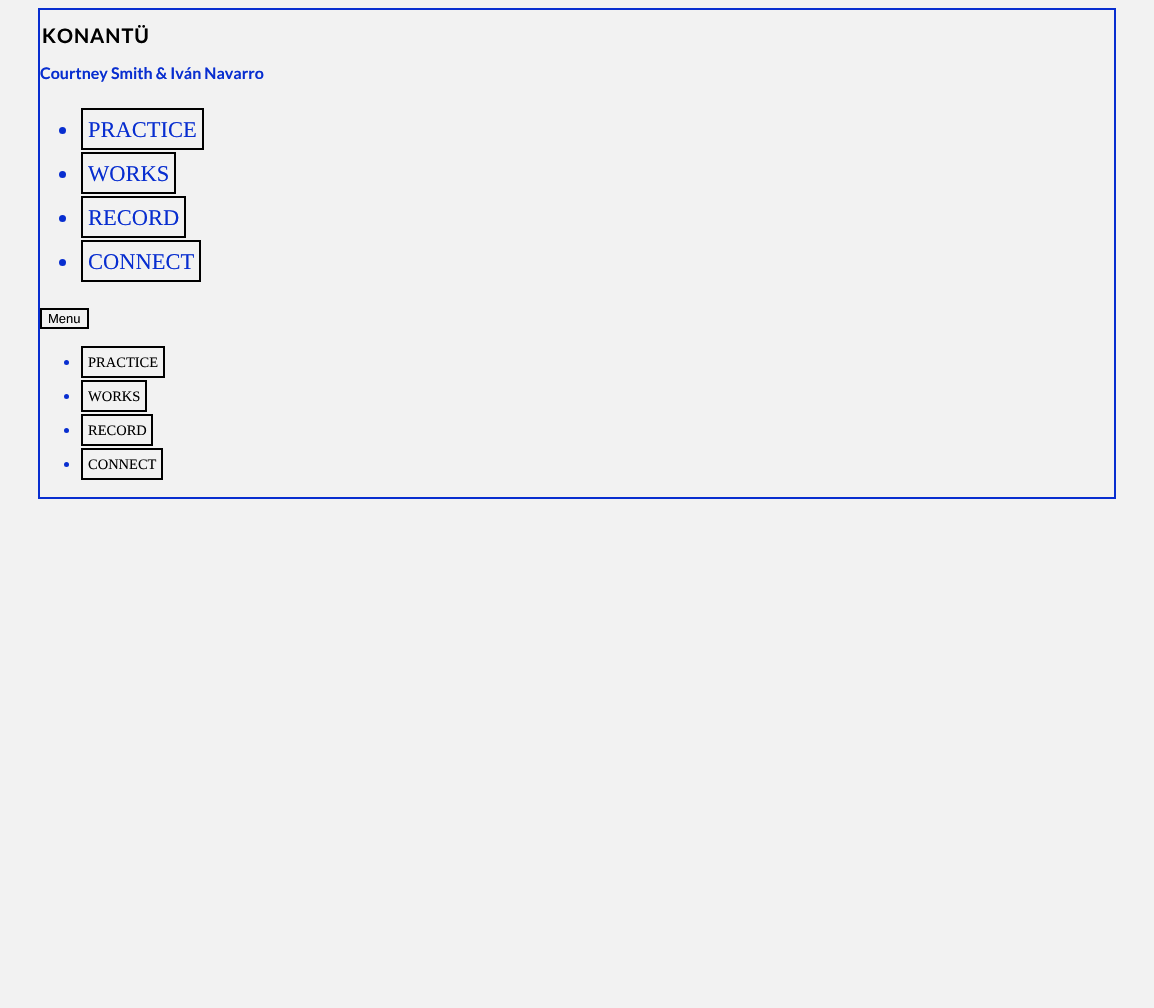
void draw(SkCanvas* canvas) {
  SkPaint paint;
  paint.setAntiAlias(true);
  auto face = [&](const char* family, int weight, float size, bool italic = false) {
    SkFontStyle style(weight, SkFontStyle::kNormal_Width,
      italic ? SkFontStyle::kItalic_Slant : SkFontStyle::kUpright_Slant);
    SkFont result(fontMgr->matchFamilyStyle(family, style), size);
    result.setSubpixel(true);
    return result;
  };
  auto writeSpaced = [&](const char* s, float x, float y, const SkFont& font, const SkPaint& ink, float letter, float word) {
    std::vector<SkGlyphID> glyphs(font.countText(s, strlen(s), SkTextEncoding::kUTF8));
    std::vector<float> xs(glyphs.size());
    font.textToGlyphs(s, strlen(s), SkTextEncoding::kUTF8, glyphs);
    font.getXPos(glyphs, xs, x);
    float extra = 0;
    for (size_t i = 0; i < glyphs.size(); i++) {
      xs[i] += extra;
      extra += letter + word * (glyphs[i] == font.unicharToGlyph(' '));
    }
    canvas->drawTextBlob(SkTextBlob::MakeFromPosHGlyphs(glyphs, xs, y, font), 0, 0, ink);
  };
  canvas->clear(0xfff2f2f2);
  paint.setStroke(true);
  paint.setStrokeWidth(2);
  paint.setColor(0xff082ed0);
  canvas->drawRect(SkRect::MakeXYWH(39, 9, 1076, 489), paint);
  paint.setStroke(false);
  canvas->drawCircle(62.5f, 130.5f, 3.5f, paint);
  paint.setStroke(true);
  paint.setColor(0xff000000);
  canvas->drawRect(SkRect::MakeXYWH(82, 109, 121, 40), paint);
  paint.setStroke(false);
  paint.setColor(0xff082ed0);
  canvas->drawCircle(62.5f, 174.5f, 3.5f, paint);
  paint.setStroke(true);
  paint.setColor(0xff000000);
  canvas->drawRect(SkRect::MakeXYWH(82, 153, 93, 40), paint);
  paint.setStroke(false);
  paint.setColor(0xff082ed0);
  canvas->drawCircle(62.5f, 218.5f, 3.5f, paint);
  paint.setStroke(true);
  paint.setColor(0xff000000);
  canvas->drawRect(SkRect::MakeXYWH(82, 197, 103, 40), paint);
  paint.setStroke(false);
  paint.setColor(0xff082ed0);
  canvas->drawCircle(62.5f, 262.5f, 3.5f, paint);
  paint.setStroke(true);
  paint.setColor(0xff000000);
  canvas->drawRect(SkRect::MakeXYWH(82, 241, 118, 40), paint);
  canvas->drawRect(SkRect::MakeXYWH(41, 309, 47, 19), paint);
  paint.setStroke(false);
  paint.setColor(0xff082ed0);
  canvas->drawCircle(66.5f, 362.5f, 2.5f, paint);
  paint.setStroke(true);
  paint.setColor(0xff000000);
  canvas->drawRect(SkRect::MakeXYWH(82, 347, 82, 30), paint);
  paint.setStroke(false);
  paint.setColor(0xff082ed0);
  canvas->drawCircle(66.5f, 396.5f, 2.5f, paint);
  paint.setStroke(true);
  paint.setColor(0xff000000);
  canvas->drawRect(SkRect::MakeXYWH(82, 381, 64, 30), paint);
  paint.setStroke(false);
  paint.setColor(0xff082ed0);
  canvas->drawCircle(66.5f, 430.5f, 2.5f, paint);
  paint.setStroke(true);
  paint.setColor(0xff000000);
  canvas->drawRect(SkRect::MakeXYWH(82, 415, 70, 30), paint);
  paint.setStroke(false);
  paint.setColor(0xff082ed0);
  canvas->drawCircle(66.5f, 464.5f, 2.5f, paint);
  paint.setStroke(true);
  paint.setColor(0xff000000);
  canvas->drawRect(SkRect::MakeXYWH(82, 449, 80, 30), paint);
  auto f0 = face("Lato", 700, 20);
  paint.setStroke(false);
  writeSpaced("KONANTÜ", 42, 43, f0, paint, 1, 0);
  auto f1 = face("Lato", 700, 16);
  paint.setColor(0xff082ed0);
  canvas->drawString("Courtney Smith & Iván Navarro", 40, 79, f1, paint);
  auto f2 = face("Liberation Serif", 400, 22.5f);
  {
    const struct { const char* s; float x, y; } items[] = {
      {"PRACTICE", 88, 137},
      {"WORKS", 88, 181},
      {"RECORD", 88, 225},
      {"CONNECT", 88, 269},
    };
    for (auto [s, x, y] : items) {
      canvas->drawString(s, x, y, f2, paint);
    }
  }
  auto f3 = face("Liberation Sans", 400, 13);
  paint.setColor(0xff000000);
  canvas->drawString("Menu", 48, 323, f3, paint);
  auto f4 = face("Liberation Serif", 400, 14.5f);
  {
    const struct { const char* s; float x, y; } items[] = {
      {"PRACTICE", 88, 367},
      {"WORKS", 88, 401},
      {"RECORD", 88, 435},
      {"CONNECT", 88, 469},
    };
    for (auto [s, x, y] : items) {
      canvas->drawString(s, x, y, f4, paint);
    }
  }
}
